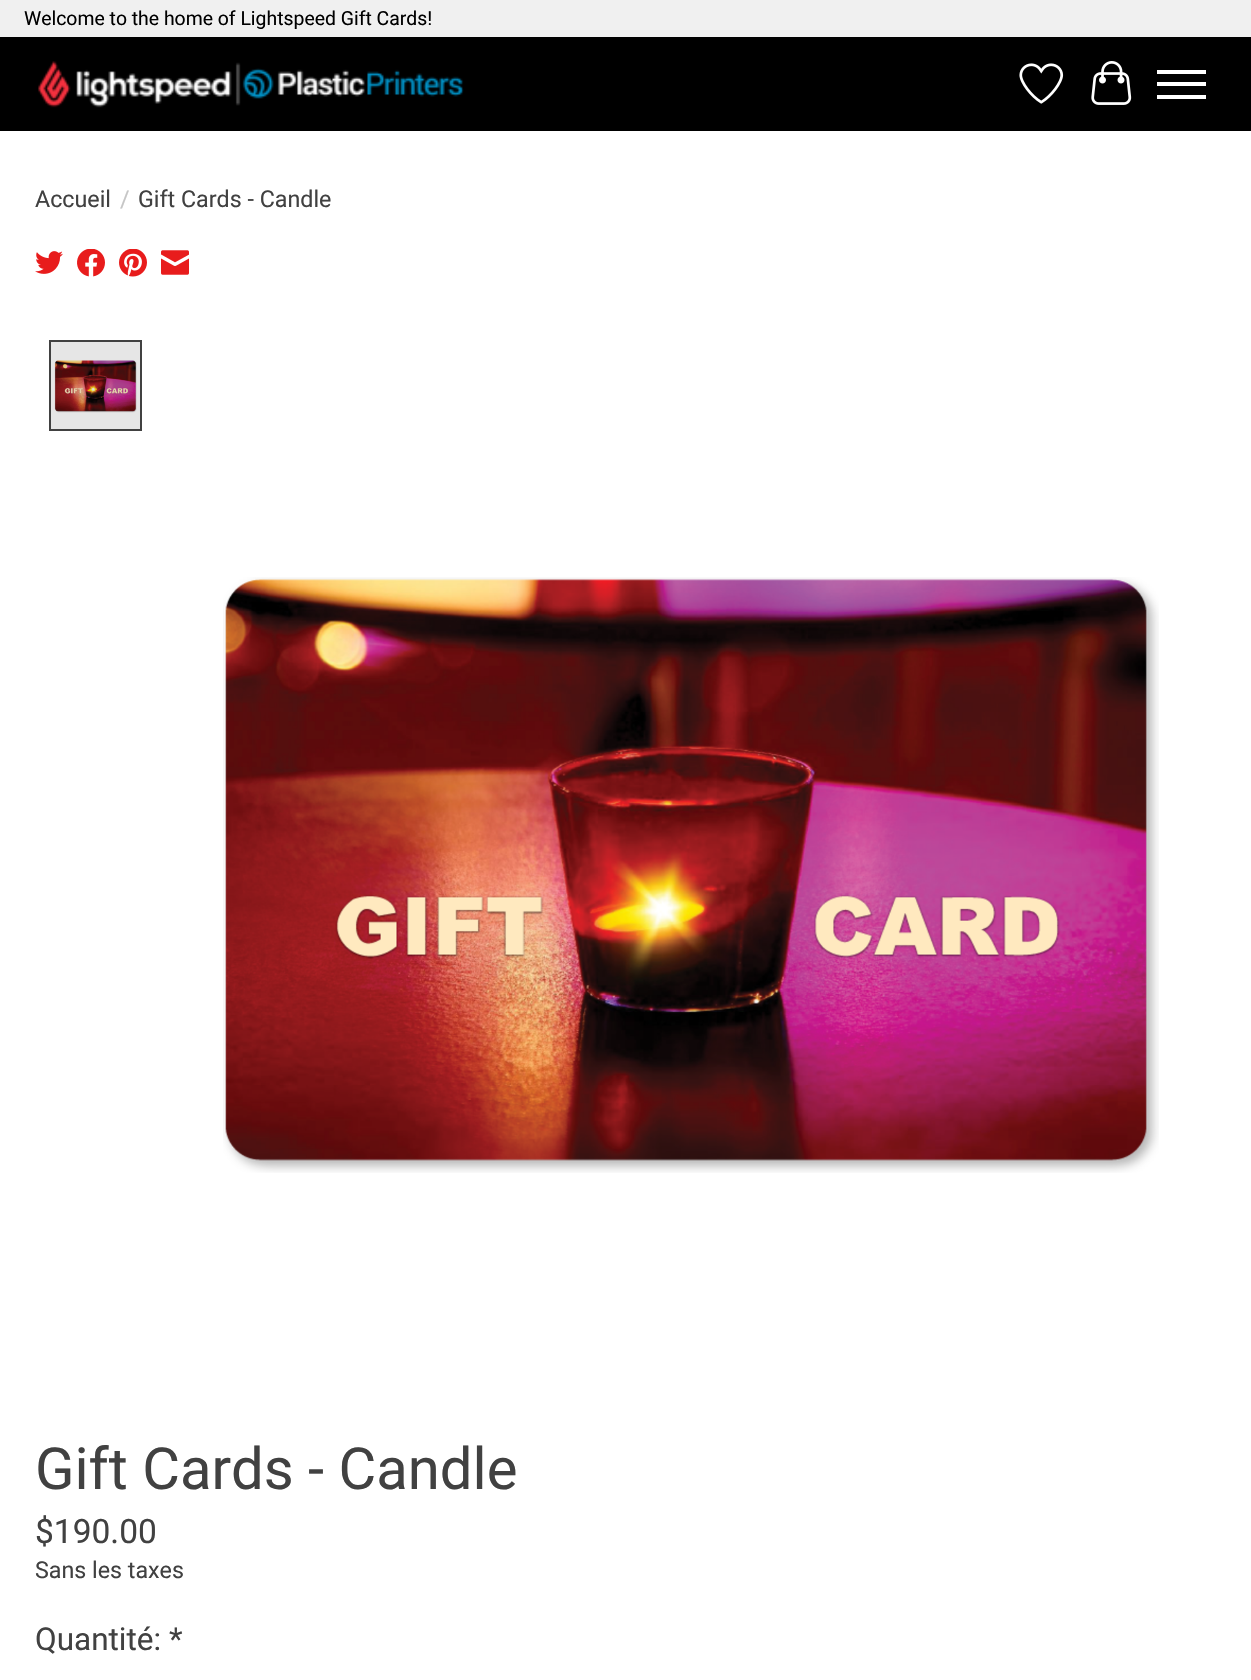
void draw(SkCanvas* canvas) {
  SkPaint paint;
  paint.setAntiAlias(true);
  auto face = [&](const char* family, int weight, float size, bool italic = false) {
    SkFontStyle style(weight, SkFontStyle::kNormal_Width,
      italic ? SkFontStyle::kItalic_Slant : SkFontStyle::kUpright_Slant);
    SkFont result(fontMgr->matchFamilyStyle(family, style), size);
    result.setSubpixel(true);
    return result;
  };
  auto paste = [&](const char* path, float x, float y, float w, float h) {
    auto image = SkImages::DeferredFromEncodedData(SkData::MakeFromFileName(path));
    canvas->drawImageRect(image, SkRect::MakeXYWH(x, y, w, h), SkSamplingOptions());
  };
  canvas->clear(0xffffffff);
  {
    const struct { float x, y, w, h; SkColor color; } items[] = {
      {51, 342, 89, 87, 0xffe6e6e6},
      {0, 37, 1251, 94, 0xff000000},
      {0, 0, 1251, 37, 0xfff0f0f0},
    };
    for (auto [x, y, w, h, color] : items) {
      paint.setColor(color);
      canvas->drawRect(SkRect::MakeXYWH(x, y, w, h), paint);
    }
  }
  paste("img/1.png", 38, 61, 426, 47);
  paste("img/2.png", 1019, 63, 45, 41);
  paste("img/3.png", 1091, 61, 41, 44);
  {
    const struct { float x, y, w, h; SkColor color; } items[] = {
      {1157, 82, 49, 4, 0xffffffff},
      {1157, 70, 49, 4, 0xffffffff},
      {1157, 95, 49, 4, 0xffffffff},
    };
    for (auto [x, y, w, h, color] : items) {
      paint.setColor(color);
      canvas->drawRect(SkRect::MakeXYWH(x, y, w, h), paint);
    }
  }
  paste("img/4.png", 35, 251, 28, 23);
  paste("img/5.png", 77, 249, 28, 28);
  paste("img/6.png", 119, 249, 28, 28);
  paste("img/7.png", 161, 250, 28, 25);
  paste("img/8.png", 54, 360, 83, 53);
  paint.setStroke(true);
  paint.setStrokeWidth(2);
  paint.setColor(0xff414141);
  canvas->drawRect(SkRect::MakeXYWH(50, 341, 91, 89), paint);
  paste("img/9.png", 223, 577, 936, 596);
  auto f0 = face("Roboto", 400, 19.4f);
  paint.setStroke(false);
  paint.setColor(0xff000000);
  canvas->drawString("Welcome to the home of Lightspeed Gift Cards!", 24, 25, f0, paint);
  auto f1 = face("Roboto", 400, 23.25f);
  paint.setColor(0xff414141);
  canvas->drawString("Accueil", 35, 207, f1, paint);
  paint.setColor(0xffc6c6c6);
  canvas->drawString("/", 120, 207, f1, paint);
  paint.setColor(0xff414141);
  canvas->drawString("Gift Cards - Candle", 138, 207, f1, paint);
  auto f2 = face("Roboto", 400, 58);
  canvas->drawString("Gift Cards - Candle", 35, 1489, f2, paint);
  auto f3 = face("Roboto", 400, 33.5f);
  canvas->drawString("$190.00", 35, 1543, f3, paint);
  canvas->drawString("Sans les taxes", 35, 1578, f1, paint);
  auto f4 = face("Roboto", 400, 31.5f);
  canvas->drawString("Quantité: *", 35, 1650, f4, paint);
}
